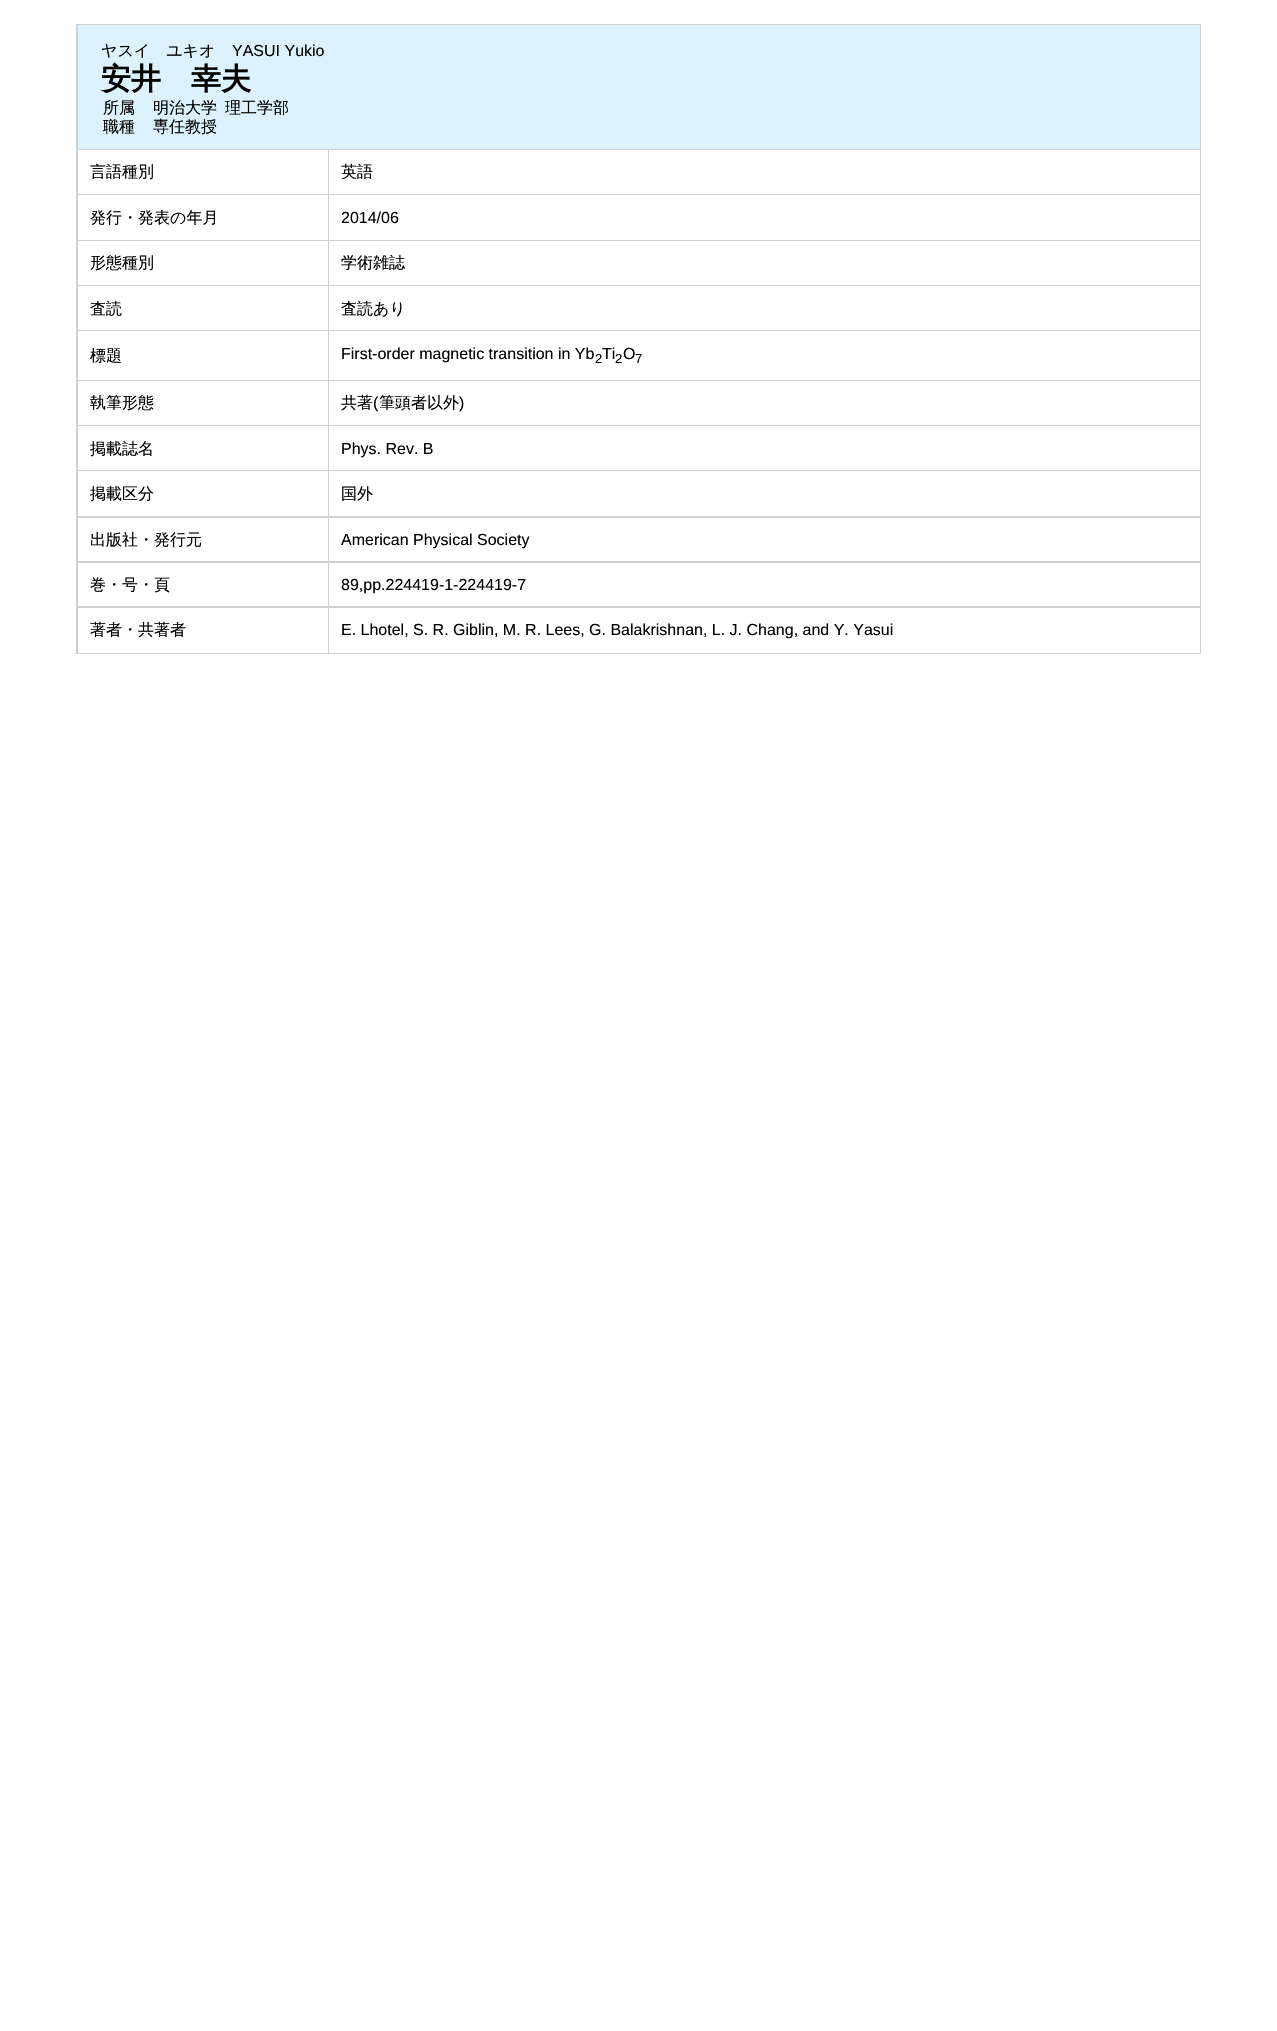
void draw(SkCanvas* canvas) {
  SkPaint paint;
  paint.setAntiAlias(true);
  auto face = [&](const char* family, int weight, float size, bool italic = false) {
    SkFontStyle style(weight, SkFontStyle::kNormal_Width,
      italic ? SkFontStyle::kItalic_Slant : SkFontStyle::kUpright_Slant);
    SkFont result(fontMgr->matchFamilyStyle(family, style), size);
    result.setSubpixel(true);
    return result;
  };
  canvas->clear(0xffffffff);
  {
    const struct { float x, y, w, h; SkColor color; } items[] = {
      {76, 24, 1125, 630, 0xffd0d0d0},
      {78, 25, 1122, 124, 0xffdcf2fc},
      {78, 150, 250, 44, 0xffffffff},
      {329, 150, 871, 44, 0xffffffff},
      {78, 195, 250, 45, 0xffffffff},
      {329, 195, 871, 45, 0xffffffff},
      {78, 241, 250, 44, 0xffffffff},
      {329, 241, 871, 44, 0xffffffff},
      {78, 286, 250, 44, 0xffffffff},
      {329, 286, 871, 44, 0xffffffff},
      {78, 331, 250, 49, 0xffffffff},
      {329, 331, 871, 49, 0xffffffff},
      {78, 381, 250, 44, 0xffffffff},
      {329, 381, 871, 44, 0xffffffff},
      {78, 426, 250, 44, 0xffffffff},
      {329, 426, 871, 44, 0xffffffff},
      {78, 471, 250, 45, 0xffffffff},
      {329, 471, 871, 45, 0xffffffff},
      {78, 518, 250, 43, 0xffffffff},
      {329, 518, 871, 43, 0xffffffff},
      {78, 563, 250, 43, 0xffffffff},
      {329, 563, 871, 43, 0xffffffff},
      {78, 608, 250, 45, 0xffffffff},
      {329, 608, 871, 45, 0xffffffff},
    };
    for (auto [x, y, w, h, color] : items) {
      paint.setColor(color);
      canvas->drawRect(SkRect::MakeXYWH(x, y, w, h), paint);
    }
  }
  auto f0 = face("WenQuanYi Zen Hei", 500, 16);
  paint.setColor(0xff000000);
  canvas->drawString("ヤスイ　ユキオ", 101, 56, f0, paint);
  auto f1 = face("Liberation Sans", 400, 16);
  canvas->drawString("YASUI Yukio", 232, 56, f1, paint);
  auto f2 = face("WenQuanYi Zen Hei", 700, 30);
  canvas->drawString("安井　幸夫", 101, 89, f2, paint);
  {
    const struct { const char* s; float x, y; } items[] = {
      {"所属", 103, 113},
      {"明治大学", 153, 113},
      {"理工学部", 225, 113},
      {"職種", 103, 132},
      {"専任教授", 153, 132},
      {"言語種別", 90, 177},
      {"英語", 341, 177},
      {"発行・発表の年月", 90, 223},
    };
    for (auto [s, x, y] : items) {
      canvas->drawString(s, x, y, f0, paint);
    }
  }
  canvas->drawString("2014/06", 341, 223, f1, paint);
  {
    const struct { const char* s; float x, y; } items[] = {
      {"形態種別", 90, 268},
      {"学術雑誌", 341, 268},
      {"査読", 90, 314},
      {"査読あり", 341, 314},
      {"標題", 90, 361},
    };
    for (auto [s, x, y] : items) {
      canvas->drawString(s, x, y, f0, paint);
    }
  }
  canvas->drawString("First-order magnetic transition in Yb", 341, 359, f1, paint);
  auto f3 = face("Liberation Sans", 400, 13);
  canvas->drawString("2", 595, 363, f3, paint);
  canvas->drawString("Ti", 602, 359, f1, paint);
  canvas->drawString("2", 615, 363, f3, paint);
  canvas->drawString("O", 623, 359, f1, paint);
  canvas->drawString("7", 635, 363, f3, paint);
  canvas->drawString("執筆形態", 90, 408, f0, paint);
  canvas->drawString("共著", 341, 408, f0, paint);
  canvas->drawString("(", 373, 408, f1, paint);
  canvas->drawString("筆頭者以外", 379, 408, f0, paint);
  canvas->drawString(")", 459, 408, f1, paint);
  canvas->drawString("掲載誌名", 90, 454, f0, paint);
  canvas->drawString("Phys. Rev. B", 341, 454, f1, paint);
  {
    const struct { const char* s; float x, y; } items[] = {
      {"掲載区分", 90, 499},
      {"国外", 341, 499},
      {"出版社・発行元", 90, 545},
    };
    for (auto [s, x, y] : items) {
      canvas->drawString(s, x, y, f0, paint);
    }
  }
  canvas->drawString("American Physical Society", 341, 545, f1, paint);
  canvas->drawString("巻・号・頁", 90, 590, f0, paint);
  canvas->drawString("89,pp.224419-1-224419-7", 341, 590, f1, paint);
  canvas->drawString("著者・共著者", 90, 635, f0, paint);
  canvas->drawString("E. Lhotel, S. R. Giblin, M. R. Lees, G. Balakrishnan, L. J. Chang, and Y. Yasui", 341, 635, f1, paint);
}
